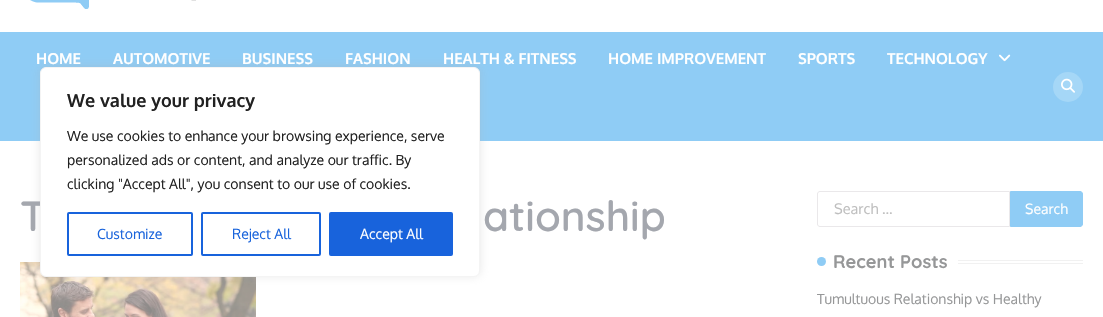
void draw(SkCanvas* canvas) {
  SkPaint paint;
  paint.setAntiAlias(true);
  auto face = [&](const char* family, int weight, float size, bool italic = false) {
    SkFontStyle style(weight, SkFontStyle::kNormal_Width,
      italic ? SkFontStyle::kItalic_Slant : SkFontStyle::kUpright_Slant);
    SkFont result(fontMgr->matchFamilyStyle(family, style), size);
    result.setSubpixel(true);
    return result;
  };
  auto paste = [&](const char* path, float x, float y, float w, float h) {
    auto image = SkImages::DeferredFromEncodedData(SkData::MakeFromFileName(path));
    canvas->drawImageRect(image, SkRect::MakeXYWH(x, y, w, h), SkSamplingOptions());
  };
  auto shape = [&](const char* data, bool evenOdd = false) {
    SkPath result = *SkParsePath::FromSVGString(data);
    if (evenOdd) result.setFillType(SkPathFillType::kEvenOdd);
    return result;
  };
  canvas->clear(0xffffffff);
  paste("img/1.png", 30, 0, 166, 9);
  paint.setColor(0xff8fccf5);
  canvas->drawRect(SkRect::MakeXYWH(0, 32, 1103, 109), paint);
  paste("img/2.png", 999, 54, 12, 8);
  paint.setColor(0xffa5d7f7);
  canvas->drawCircle(1068, 87, 15, paint);
  paste("img/3.png", 1061, 78, 14, 15);
  paste("img/4.png", 20, 262, 236, 55);
  paint.setStroke(true);
  paint.setStrokeWidth(1);
  paint.setColor(0xffeae8ea);
  canvas->drawPath(shape("M820 191.5H1009.5V226.5H820C818.5 226.5 817.5 225.5 817.5 224V194C817.5 192.5 818.5 191.5 820 191.5Z"), paint);
  paint.setStroke(false);
  paint.setColor(0xff8fccf5);
  canvas->drawPath(shape("M1010.5 191.5H1080C1081.5 191.5 1082.5 192.5 1082.5 194V224C1082.5 225.5 1081.5 226.5 1080 226.5H1010.5Z"), paint);
  paint.setStroke(true);
  canvas->drawPath(shape("M1010.5 191.5H1080C1081.5 191.5 1082.5 192.5 1082.5 194V224C1082.5 225.5 1081.5 226.5 1080 226.5H1010.5Z"), paint);
  paint.setStroke(false);
  canvas->drawCircle(821.5f, 261.5f, 4.5f, paint);
  paint.setColor(0xfff1f1f1);
  canvas->drawRect(SkRect::MakeXYWH(958, 260, 125, 1), paint);
  canvas->drawRect(SkRect::MakeXYWH(958, 263, 125, 1), paint);
  paint.setColor(0x4dacabab);
  paint.setMaskFilter(SkMaskFilter::MakeBlur(kNormal_SkBlurStyle, 5));
  canvas->drawRoundRect(SkRect::MakeXYWH(40, 66, 440, 210), 6, 6, paint);
  paint.setMaskFilter(nullptr);
  auto f0 = face("Oxygen", 700, 15);
  paint.setColor(0xffffffff);
  {
    const struct { const char* s; float x, y; } items[] = {
      {"HOME", 36, 64},
      {"AUTOMOTIVE", 113, 64},
      {"BUSINESS", 242, 64},
      {"FASHION", 345, 64},
      {"HEALTH & FITNESS", 443, 64},
      {"HOME IMPROVEMENT", 608, 64},
      {"SPORTS", 798, 64},
      {"TECHNOLOGY", 887, 64},
    };
    for (auto [s, x, y] : items) {
      canvas->drawString(s, x, y, f0, paint);
    }
  }
  auto f1 = face("Quicksand", 600, 42);
  paint.setColor(0xffa4a7ae);
  canvas->drawString("T", 20, 231, f1, paint);
  canvas->drawString("ationship", 483, 231, f1, paint);
  auto f2 = face("Oxygen", 400, 14.5f);
  paint.setColor(0xffbebebe);
  canvas->drawString("Search …", 834, 214, f2, paint);
  auto f3 = face("Oxygen", 400, 14);
  paint.setColor(0xffffffff);
  canvas->drawString("Search", 1025, 214, f3, paint);
  auto f4 = face("Quicksand", 700, 18.25f);
  paint.setColor(0xff969798);
  canvas->drawString("Recent Posts", 833, 268, f4, paint);
  canvas->drawString("Tumultuous Relationship vs Healthy", 817, 304, f3, paint);
  paint.setColor(0xffffffff);
  canvas->drawRoundRect(SkRect::MakeXYWH(40.5f, 67.5f, 439, 209), 5.5f, 5.5f, paint);
  paint.setStroke(true);
  paint.setColor(0xfff4f4f4);
  canvas->drawRoundRect(SkRect::MakeXYWH(40.5f, 67.5f, 439, 209), 5.5f, 5.5f, paint);
  auto f5 = face("Oxygen", 700, 18);
  paint.setStroke(false);
  paint.setColor(0xff212121);
  canvas->drawString("We value your privacy", 67, 107, f5, paint);
  {
    const struct { const char* s; float x, y; } items[] = {
      {"We use cookies to enhance your browsing experience, serve", 67, 141},
      {"personalized ads or content, and analyze our traffic. By", 67, 165},
      {"clicking \"Accept All\", you consent to our use of cookies.", 67, 189},
    };
    for (auto [s, x, y] : items) {
      canvas->drawString(s, x, y, f3, paint);
    }
  }
  paint.setStroke(true);
  paint.setStrokeWidth(2);
  paint.setColor(0xff1863dc);
  canvas->drawRoundRect(SkRect::MakeXYWH(68, 213, 124, 42), 1, 1, paint);
  paint.setStroke(false);
  canvas->drawString("Customize", 97, 239, f3, paint);
  paint.setStroke(true);
  canvas->drawRoundRect(SkRect::MakeXYWH(202, 213, 118, 42), 1, 1, paint);
  paint.setStroke(false);
  canvas->drawString("Reject All", 232, 239, f3, paint);
  canvas->drawRoundRect(SkRect::MakeXYWH(330, 213, 122, 42), 1, 1, paint);
  paint.setStroke(true);
  canvas->drawRoundRect(SkRect::MakeXYWH(330, 213, 122, 42), 1, 1, paint);
  paint.setStroke(false);
  paint.setColor(0xffffffff);
  canvas->drawString("Accept All", 360, 239, f3, paint);
}
